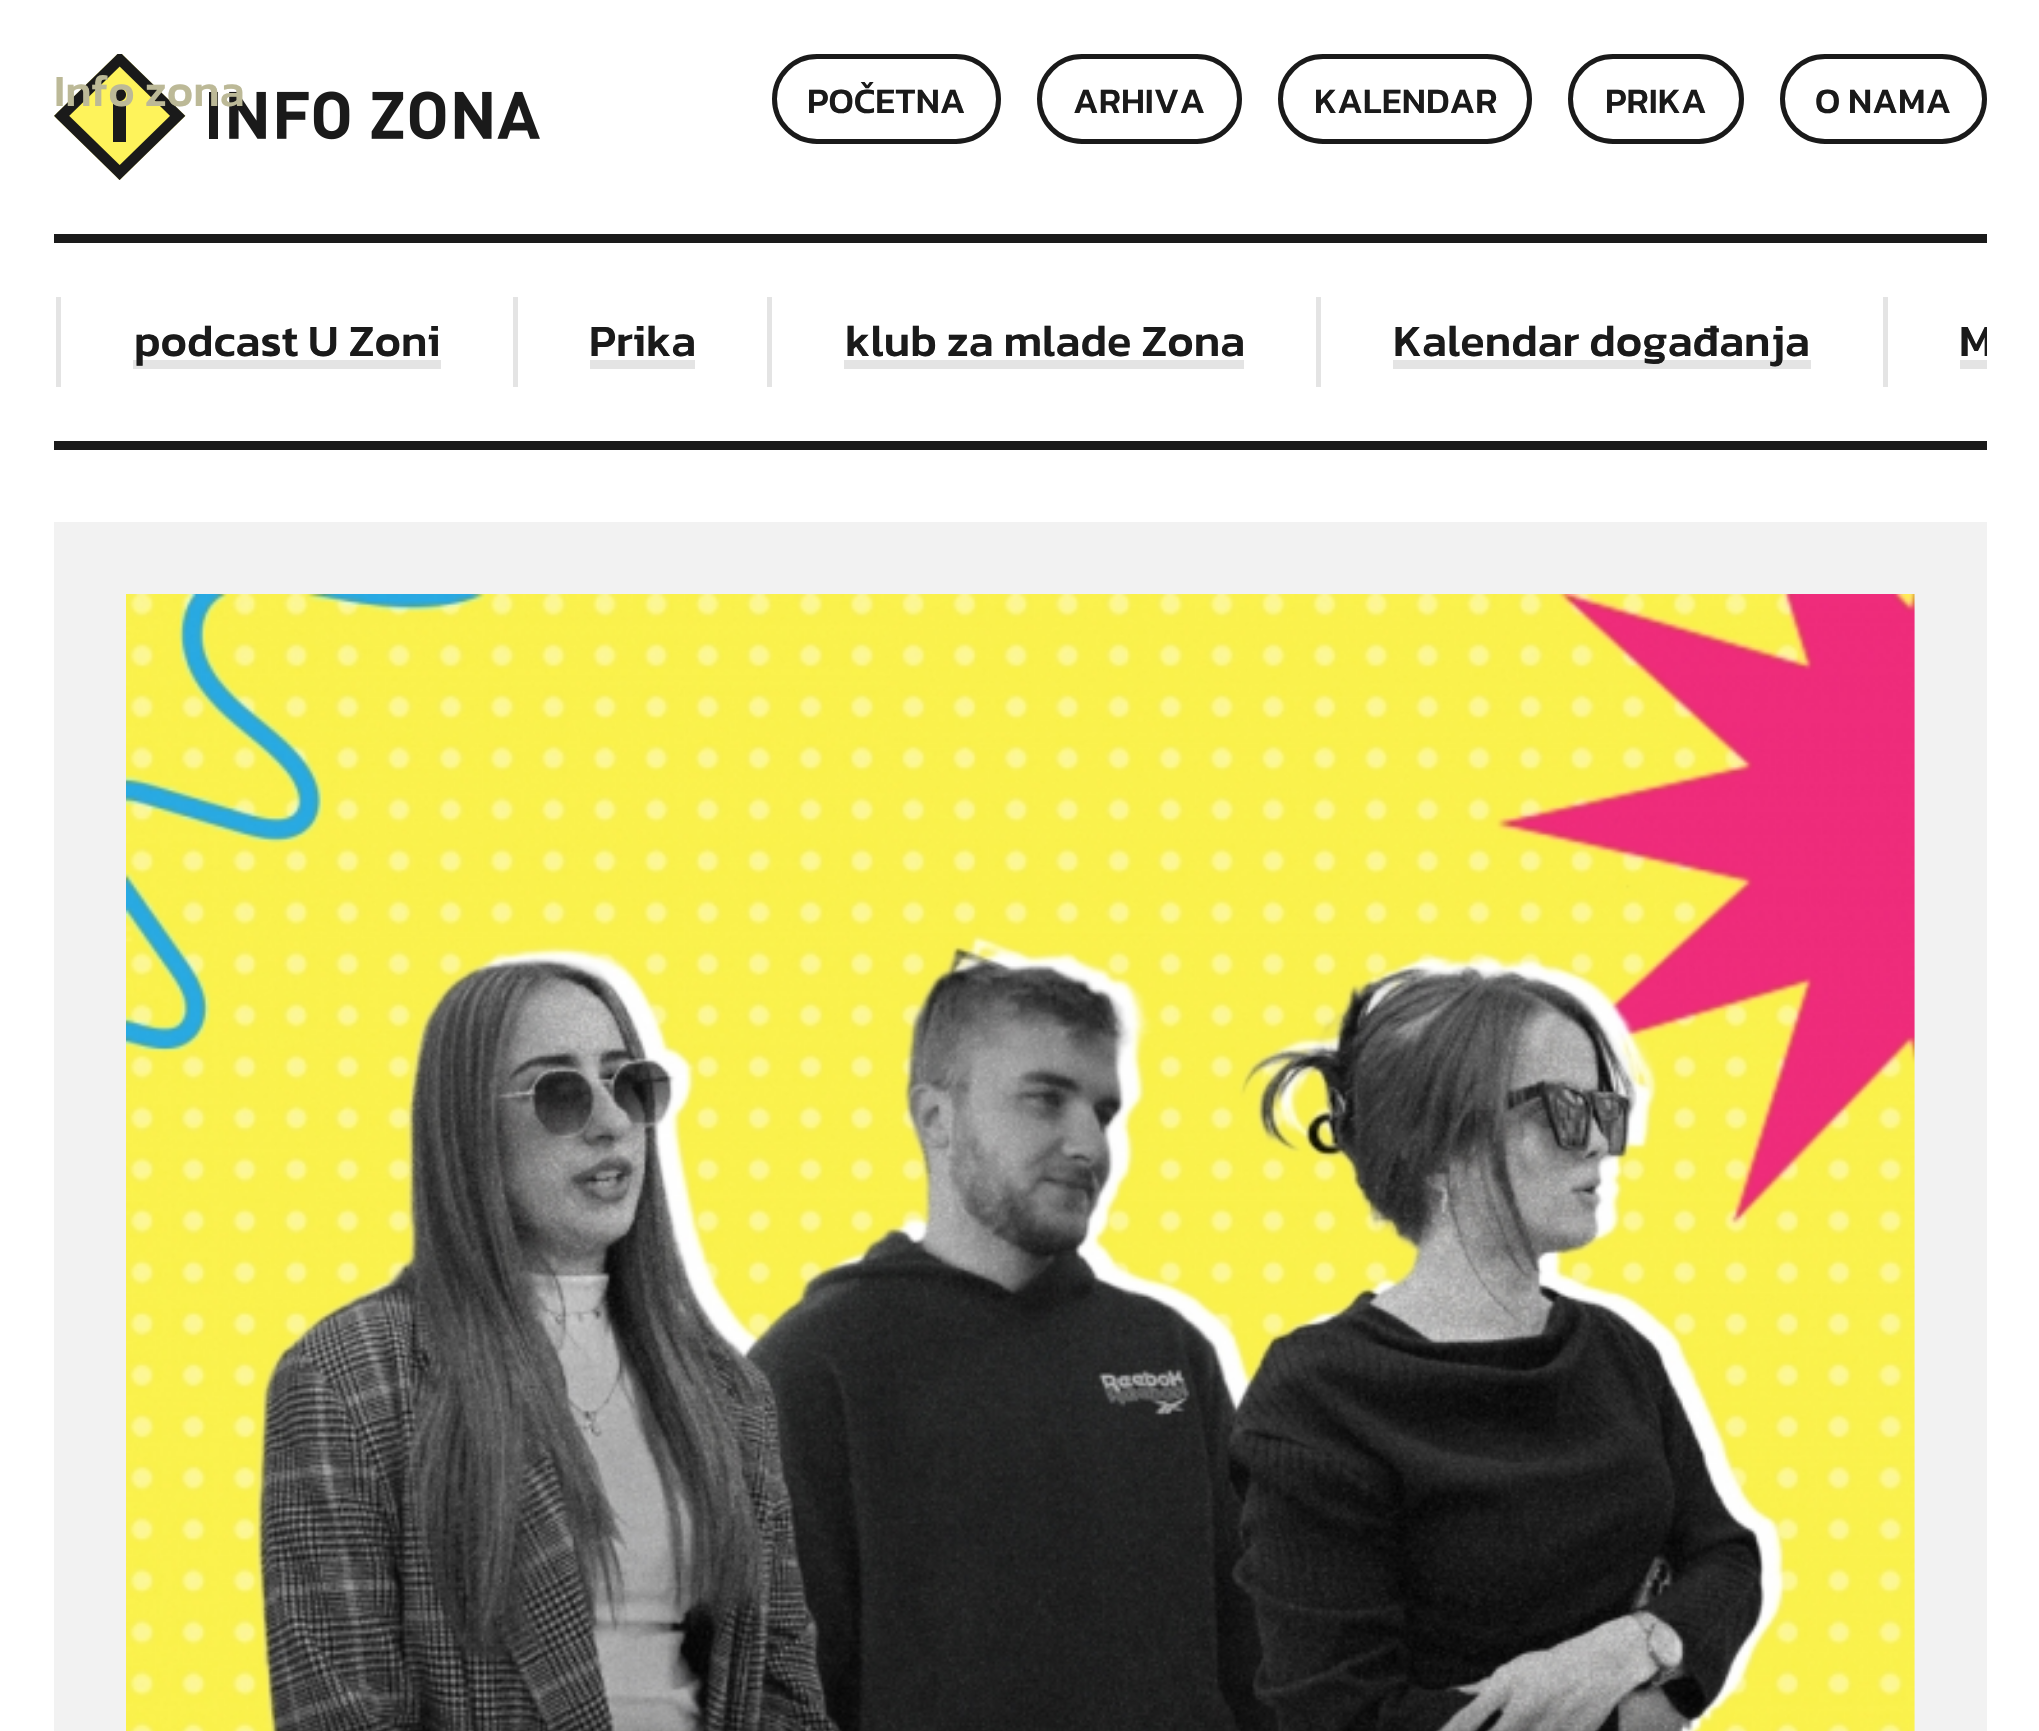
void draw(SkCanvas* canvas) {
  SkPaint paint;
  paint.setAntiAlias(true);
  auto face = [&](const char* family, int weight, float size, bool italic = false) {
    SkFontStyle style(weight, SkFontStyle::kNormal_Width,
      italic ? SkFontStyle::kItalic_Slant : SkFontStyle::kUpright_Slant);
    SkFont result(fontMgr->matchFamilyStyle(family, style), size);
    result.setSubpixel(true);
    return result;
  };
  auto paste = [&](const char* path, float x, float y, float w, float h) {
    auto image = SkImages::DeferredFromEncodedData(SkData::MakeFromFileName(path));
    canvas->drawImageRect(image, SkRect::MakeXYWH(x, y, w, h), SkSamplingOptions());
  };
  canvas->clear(0xffffffff);
  paint.setColor(0xff1a1a1a);
  canvas->drawRect(SkRect::MakeXYWH(54, 234, 1933, 9), paint);
  paste("img/1.png", 54, 54, 486, 126);
  paint.setStroke(true);
  paint.setStrokeWidth(5);
  canvas->drawRoundRect(SkRect::MakeXYWH(774.5f, 56.5f, 224, 85), 42.5f, 42.5f, paint);
  canvas->drawRoundRect(SkRect::MakeXYWH(1039.5f, 56.5f, 200, 85), 42.5f, 42.5f, paint);
  canvas->drawRoundRect(SkRect::MakeXYWH(1280.5f, 56.5f, 249, 85), 42.5f, 42.5f, paint);
  canvas->drawRoundRect(SkRect::MakeXYWH(1570.5f, 56.5f, 171, 85), 42.5f, 42.5f, paint);
  canvas->drawRoundRect(SkRect::MakeXYWH(1782.5f, 56.5f, 202, 85), 42.5f, 42.5f, paint);
  paint.setStroke(false);
  {
    const struct { float x, y, w, h; SkColor color; } items[] = {
      {54, 441, 1933, 9, 0xff1a1a1a},
      {56, 297, 5, 90, 0xffe4e4e4},
      {513, 297, 5, 90, 0xffe4e4e4},
      {133, 360, 308, 9, 0xffe4e4e4},
      {767, 297, 5, 90, 0xffe4e4e4},
      {590, 360, 105, 9, 0xffe4e4e4},
      {1316, 297, 5, 90, 0xffe4e4e4},
      {844, 360, 400, 9, 0xffe4e4e4},
      {1883, 297, 5, 90, 0xffe4e4e4},
      {1393, 360, 418, 9, 0xffe4e4e4},
      {1960, 360, 27, 9, 0xffe4e4e4},
      {54, 522, 1933, 1209, 0xfff2f2f2},
    };
    for (auto [x, y, w, h, color] : items) {
      paint.setColor(color);
      canvas->drawRect(SkRect::MakeXYWH(x, y, w, h), paint);
    }
  }
  paste("img/2.png", 126, 594, 1789, 1137);
  auto f0 = face("Kanit", 500, 45);
  paint.setColor(0xffbcb997);
  canvas->drawString("Info zona", 54, 106, f0, paint);
  auto f1 = face("Kanit", 500, 36);
  paint.setColor(0xff1a1a1a);
  {
    const struct { const char* s; float x, y; } items[] = {
      {"POČETNA", 807, 113},
      {"ARHIVA", 1073, 113},
      {"KALENDAR", 1314, 113},
      {"PRIKA", 1605, 113},
      {"O NAMA", 1815, 113},
    };
    for (auto [s, x, y] : items) {
      canvas->drawString(s, x, y, f1, paint);
    }
  }
  {
    const struct { const char* s; float x, y; } items[] = {
      {"podcast U Zoni", 134, 356},
      {"Prika", 589, 356},
      {"klub za mlade Zona", 845, 356},
      {"Kalendar događanja", 1393, 356},
    };
    for (auto [s, x, y] : items) {
      canvas->drawString(s, x, y, f0, paint);
    }
  }
  canvas->save();
  canvas->clipRect(SkRect::MakeXYWH(54, 297, 1933, 90));
  canvas->drawString("M", 1959, 356, f0, paint);
  canvas->restore();
}
